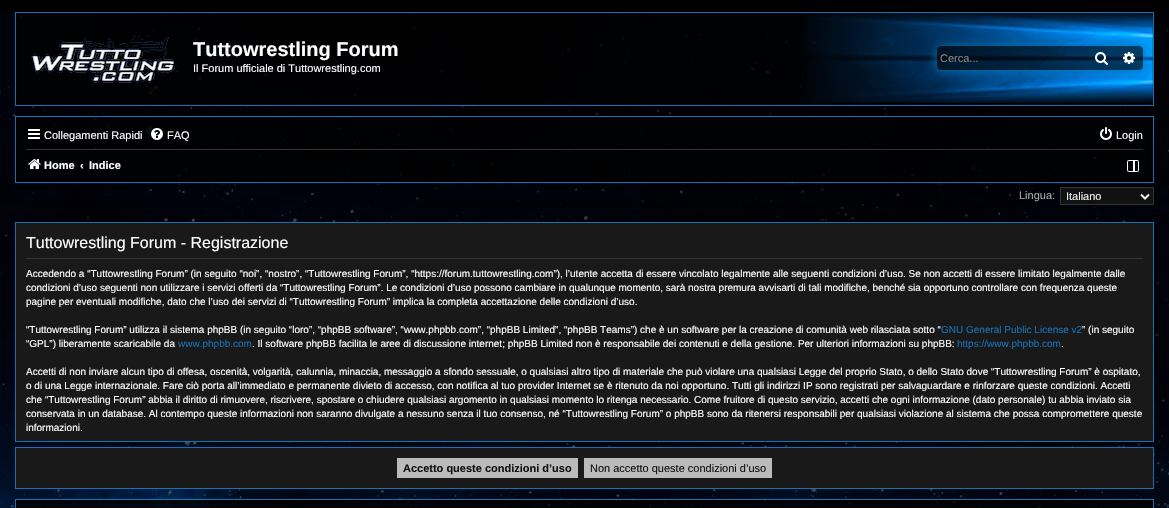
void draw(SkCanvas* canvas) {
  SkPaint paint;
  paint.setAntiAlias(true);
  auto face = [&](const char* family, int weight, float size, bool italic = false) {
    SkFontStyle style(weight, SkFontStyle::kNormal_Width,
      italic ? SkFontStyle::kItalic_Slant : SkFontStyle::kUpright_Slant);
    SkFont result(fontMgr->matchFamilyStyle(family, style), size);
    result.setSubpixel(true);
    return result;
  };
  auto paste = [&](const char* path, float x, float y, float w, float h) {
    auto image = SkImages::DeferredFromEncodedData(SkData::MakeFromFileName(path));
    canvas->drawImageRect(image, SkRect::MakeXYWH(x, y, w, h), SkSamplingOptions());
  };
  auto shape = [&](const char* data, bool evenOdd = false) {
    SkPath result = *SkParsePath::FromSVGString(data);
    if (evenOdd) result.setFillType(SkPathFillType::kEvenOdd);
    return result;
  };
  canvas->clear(0xff000000);
  paste("img/1.png", 0, 12, 1169, 496);
  paint.setColor(0xcc000000);
  canvas->drawRect(SkRect::MakeXYWH(16, 13, 1137, 92), paint);
  paste("img/2.png", 803, 13, 350, 90);
  paint.setStroke(true);
  paint.setStrokeWidth(1);
  paint.setColor(0xff1870b5);
  canvas->drawRect(SkRect::MakeXYWH(15.5f, 12.5f, 1138, 93), paint);
  paste("img/3.png", 31, 35, 144, 48);
  canvas->save();
  canvas->clipPath(shape("M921 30H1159V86H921ZM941 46H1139C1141 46 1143 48 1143 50V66C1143 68 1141 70 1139 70H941C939 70 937 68 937 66V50C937 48 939 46 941 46Z", true), true);
  paint.setStroke(false);
  paint.setColor(0xff0075b0);
  paint.setMaskFilter(SkMaskFilter::MakeBlur(kNormal_SkBlurStyle, 5));
  canvas->drawRoundRect(SkRect::MakeXYWH(937, 46, 206, 24), 4, 4, paint);
  paint.setMaskFilter(nullptr);
  canvas->restore();
  paint.setColor(0x99000000);
  canvas->drawPath(shape("M941 46H1087V70H941C939 70 937 68 937 66V50C937 48 939 46 941 46Z"), paint);
  canvas->drawRect(SkRect::MakeXYWH(1087, 46, 28, 24), paint);
  paste("img/4.png", 1095, 52, 13, 13);
  canvas->drawPath(shape("M1115 46H1139C1141 46 1143 48 1143 50V66C1143 68 1141 70 1139 70H1115Z"), paint);
  paste("img/5.png", 1123, 52, 12, 12);
  paint.setColor(0xcc000000);
  canvas->drawRect(SkRect::MakeXYWH(15.5f, 116.5f, 1138, 66), paint);
  paint.setStroke(true);
  paint.setColor(0xff1870b5);
  canvas->drawRect(SkRect::MakeXYWH(15.5f, 116.5f, 1138, 66), paint);
  paste("img/6.png", 28, 129, 12, 10);
  paste("img/7.png", 151, 128, 12, 12);
  paste("img/8.png", 1100, 127, 12, 13);
  paint.setStroke(false);
  paint.setColor(0xff333333);
  canvas->drawRect(SkRect::MakeXYWH(26, 149, 1117, 1), paint);
  paste("img/9.png", 28, 159, 13, 10);
  paste("img/10.png", 1127, 160, 12, 12);
  paint.setColor(0xff111111);
  canvas->drawRect(SkRect::MakeXYWH(1060.5f, 187.5f, 93, 17), paint);
  paint.setStroke(true);
  paint.setColor(0xff333333);
  canvas->drawRect(SkRect::MakeXYWH(1060.5f, 187.5f, 93, 17), paint);
  paint.setStrokeWidth(2);
  paint.setColor(0xffeeeeee);
  canvas->drawPath(shape("M1141 194.5L1145 198.5L1149 194.5"), paint);
  paint.setStroke(false);
  paint.setColor(0xff191919);
  canvas->drawRect(SkRect::MakeXYWH(15.5f, 222.5f, 1138, 219), paint);
  paint.setStroke(true);
  paint.setStrokeWidth(1);
  paint.setColor(0xff1870b5);
  canvas->drawRect(SkRect::MakeXYWH(15.5f, 222.5f, 1138, 219), paint);
  paint.setStroke(false);
  paint.setColor(0xff333333);
  canvas->drawRect(SkRect::MakeXYWH(26, 258, 1117, 1), paint);
  paint.setColor(0xff191919);
  canvas->drawRect(SkRect::MakeXYWH(15.5f, 447.5f, 1138, 41), paint);
  paint.setStroke(true);
  paint.setColor(0xff1870b5);
  canvas->drawRect(SkRect::MakeXYWH(15.5f, 447.5f, 1138, 41), paint);
  paint.setStroke(false);
  paint.setColor(0xffbbbbbb);
  canvas->drawRect(SkRect::MakeXYWH(397, 458, 181, 20), paint);
  canvas->drawRect(SkRect::MakeXYWH(584, 458, 188, 20), paint);
  paint.setColor(0xcc000000);
  canvas->drawRect(SkRect::MakeXYWH(15.5f, 499.5f, 1138, 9), paint);
  paint.setStroke(true);
  paint.setColor(0xff1870b5);
  canvas->drawRect(SkRect::MakeXYWH(15.5f, 499.5f, 1138, 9), paint);
  auto f0 = face("Liberation Sans", 700, 20);
  paint.setStroke(false);
  paint.setColor(0xffffffff);
  canvas->drawString("Tuttowrestling Forum", 193, 56, f0, paint);
  auto f1 = face("Liberation Sans", 400, 11);
  canvas->drawString("Il Forum ufficiale di Tuttowrestling.com", 193, 72, f1, paint);
  paint.setColor(0xff888888);
  canvas->drawString("Cerca...", 940, 62, f1, paint);
  paint.setColor(0xffffffff);
  {
    const struct { const char* s; float x, y; } items[] = {
      {"Collegamenti Rapidi", 44, 139},
      {"FAQ", 167, 139},
      {"Login", 1116, 139},
    };
    for (auto [s, x, y] : items) {
      canvas->drawString(s, x, y, f1, paint);
    }
  }
  auto f2 = face("Liberation Sans", 700, 11);
  {
    const struct { const char* s; float x, y; } items[] = {
      {"Home", 44, 169},
      {"‹", 80, 169},
      {"Indice", 89, 169},
    };
    for (auto [s, x, y] : items) {
      canvas->drawString(s, x, y, f2, paint);
    }
  }
  paint.setColor(0xffaaaaaa);
  canvas->drawString("Lingua:", 1019, 199, f1, paint);
  paint.setColor(0xffeeeeee);
  canvas->drawString("Italiano", 1066, 200, f1, paint);
  auto f3 = face("Liberation Sans", 400, 16);
  paint.setColor(0xffffffff);
  canvas->drawString("Tuttowrestling Forum - Registrazione", 26, 248, f3, paint);
  auto f4 = face("Liberation Sans", 400, 10);
  {
    const struct { const char* s; float x, y; } items[] = {
      {"Accedendo a “Tuttowrestling Forum” (in seguito “noi”, “nostro”, “Tuttowrestling Forum”, “https://forum.tuttowrestling.com”), l’utente accetta di essere vincolato legalmente alle seguenti condizioni d’uso. Se non accetti di essere limitato legalmente dalle", 26, 277},
      {"condizioni d’uso seguenti non utilizzare i servizi offerti da “Tuttowrestling Forum”. Le condizioni d’uso possono cambiare in qualunque momento, sarà nostra premura avvisarti di tali modifiche, benché sia opportuno controllare con frequenza queste", 26, 291},
      {"pagine per eventuali modifiche, dato che l’uso dei servizi di “Tuttowrestling Forum” implica la completa accettazione delle condizioni d’uso.", 26, 305},
      {"“Tuttowrestling Forum” utilizza il sistema phpBB (in seguito “loro”, “phpBB software”, “www.phpbb.com”, “phpBB Limited”, “phpBB Teams”) che è un software per la creazione di comunità web rilasciata sotto “", 26, 333},
    };
    for (auto [s, x, y] : items) {
      canvas->drawString(s, x, y, f4, paint);
    }
  }
  paint.setColor(0xff1870b5);
  canvas->drawString("GNU General Public License v2", 941, 333, f4, paint);
  paint.setColor(0xffffffff);
  canvas->drawString("” (in seguito", 1082, 333, f4, paint);
  canvas->drawString("“GPL”) liberamente scaricabile da", 26, 347, f4, paint);
  paint.setColor(0xff1870b5);
  canvas->drawString("www.phpbb.com", 178, 347, f4, paint);
  paint.setColor(0xffffffff);
  canvas->drawString(". Il software phpBB facilita le aree di discussione internet; phpBB Limited non è responsabile dei contenuti e della gestione. Per ulteriori informazioni su phpBB:", 252, 347, f4, paint);
  paint.setColor(0xff1870b5);
  canvas->drawString("https://www.phpbb.com", 957, 347, f4, paint);
  paint.setColor(0xffffffff);
  {
    const struct { const char* s; float x, y; } items[] = {
      {".", 1061, 347},
      {"Accetti di non inviare alcun tipo di offesa, oscenità, volgarità, calunnia, minaccia, messaggio a sfondo sessuale, o qualsiasi altro tipo di materiale che può violare una qualsiasi Legge del proprio Stato, o dello Stato dove “Tuttowrestling Forum” è ospitato,", 26, 375},
      {"o di una Legge internazionale. Fare ciò porta all’immediato e permanente divieto di accesso, con notifica al tuo provider Internet se è ritenuto da noi opportuno. Tutti gli indirizzi IP sono registrati per salvaguardare e rinforzare queste condizioni. Accetti", 26, 389},
      {"che “Tuttowrestling Forum” abbia il diritto di rimuovere, riscrivere, spostare o chiudere qualsiasi argomento in qualsiasi momento lo ritenga necessario. Come fruitore di questo servizio, accetti che ogni informazione (dato personale) tu abbia inviato sia", 26, 403},
      {"conservata in un database. Al contempo queste informazioni non saranno divulgate a nessuno senza il tuo consenso, né “Tuttowrestling Forum” o phpBB sono da ritenersi responsabili per qualsiasi violazione al sistema che possa compromettere queste", 26, 417},
      {"informazioni.", 26, 431},
    };
    for (auto [s, x, y] : items) {
      canvas->drawString(s, x, y, f4, paint);
    }
  }
  paint.setColor(0xff111111);
  canvas->drawString("Accetto queste condizioni d’uso", 403, 472, f2, paint);
  canvas->drawString("Non accetto queste condizioni d’uso", 590, 472, f1, paint);
}
